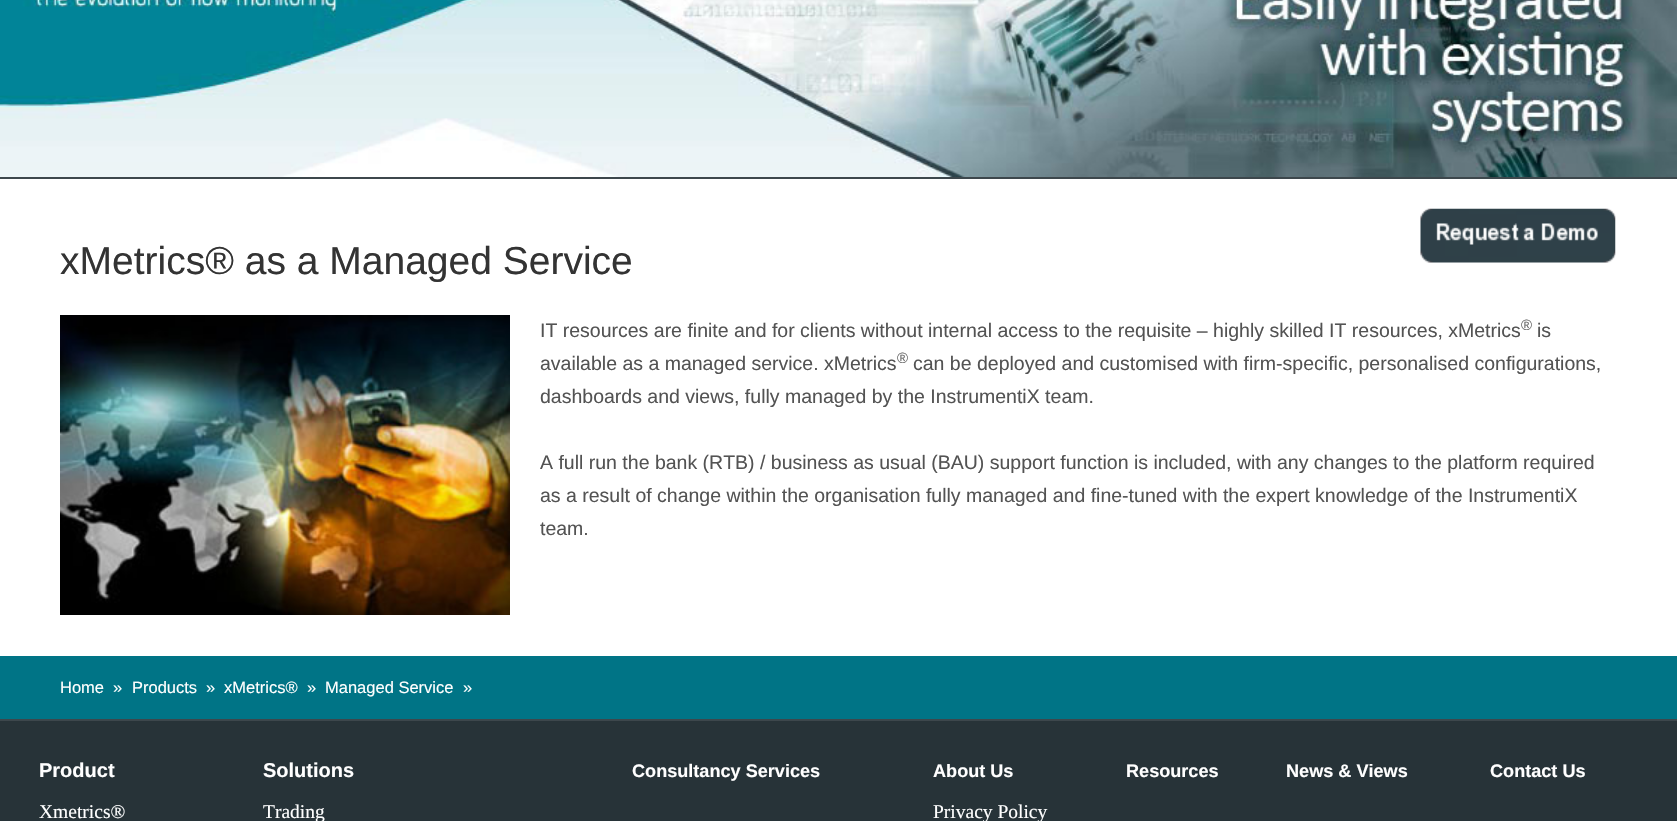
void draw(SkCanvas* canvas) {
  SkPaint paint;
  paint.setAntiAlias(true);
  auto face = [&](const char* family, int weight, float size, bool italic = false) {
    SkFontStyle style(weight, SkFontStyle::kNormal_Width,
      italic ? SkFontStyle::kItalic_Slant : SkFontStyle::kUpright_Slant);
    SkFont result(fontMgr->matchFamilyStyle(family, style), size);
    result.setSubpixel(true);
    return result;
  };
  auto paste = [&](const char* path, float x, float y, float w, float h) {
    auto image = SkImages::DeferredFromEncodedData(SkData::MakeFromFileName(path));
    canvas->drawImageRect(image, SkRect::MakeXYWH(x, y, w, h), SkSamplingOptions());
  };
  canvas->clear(0xff273338);
  paste("img/1.png", 0, 0, 1677, 177);
  paint.setColor(0xff3d474c);
  canvas->drawRect(SkRect::MakeXYWH(0, 177, 1677, 2), paint);
  paint.setColor(0xffffffff);
  canvas->drawRect(SkRect::MakeXYWH(0, 179, 1677, 477), paint);
  paste("img/2.png", 1420, 208, 196, 55);
  paste("img/3.png", 60, 315, 450, 300);
  paint.setColor(0xff007486);
  canvas->drawRect(SkRect::MakeXYWH(0, 656, 1677, 63), paint);
  paint.setColor(0xff3d474c);
  canvas->drawRect(SkRect::MakeXYWH(0, 719, 1677, 2), paint);
  auto f0 = face("Liberation Sans", 400, 39);
  paint.setColor(0xff333333);
  canvas->drawString("xMetrics® as a Managed Service", 60, 274, f0, paint);
  auto f1 = face("Liberation Sans", 400, 19.5f);
  paint.setColor(0xff535353);
  canvas->drawString("IT resources are finite and for clients without internal access to the requisite – highly skilled IT resources, xMetrics", 540, 337, f1, paint);
  auto f2 = face("Liberation Sans", 400, 15);
  paint.setColor(0xff666666);
  canvas->drawString("®", 1521, 330, f2, paint);
  paint.setColor(0xff535353);
  canvas->drawString("is", 1537, 337, f1, paint);
  canvas->drawString("available as a managed service. xMetrics", 540, 370, f1, paint);
  paint.setColor(0xff666666);
  canvas->drawString("®", 897, 363, f2, paint);
  paint.setColor(0xff535353);
  {
    const struct { const char* s; float x, y; } items[] = {
      {"can be deployed and customised with firm-specific, personalised configurations,", 913, 370},
      {"dashboards and views, fully managed by the InstrumentiX team.", 540, 403},
      {"A full run the bank (RTB) / business as usual (BAU) support function is included, with any changes to the platform required", 540, 469},
      {"as a result of change within the organisation fully managed and fine-tuned with the expert knowledge of the InstrumentiX", 540, 502},
      {"team.", 540, 535},
    };
    for (auto [s, x, y] : items) {
      canvas->drawString(s, x, y, f1, paint);
    }
  }
  auto f3 = face("Liberation Sans", 400, 16.5f);
  paint.setColor(0xffffffff);
  {
    const struct { const char* s; float x, y; } items[] = {
      {"Home", 60, 693},
      {"»", 113, 693},
      {"Products", 132, 693},
      {"»", 206, 693},
      {"xMetrics®", 224, 693},
      {"»", 307, 693},
      {"Managed Service", 325, 693},
      {"»", 463, 693},
    };
    for (auto [s, x, y] : items) {
      canvas->drawString(s, x, y, f3, paint);
    }
  }
  auto f4 = face("Liberation Sans", 700, 20);
  canvas->drawString("Product", 39, 777, f4, paint);
  canvas->drawString("Solutions", 263, 777, f4, paint);
  auto f5 = face("Liberation Sans", 700, 18.1f);
  {
    const struct { const char* s; float x, y; } items[] = {
      {"Consultancy Services", 632, 777},
      {"About Us", 933, 777},
      {"Resources", 1126, 777},
      {"News & Views", 1286, 777},
      {"Contact Us", 1490, 777},
    };
    for (auto [s, x, y] : items) {
      canvas->drawString(s, x, y, f5, paint);
    }
  }
  auto f6 = face("Liberation Serif", 400, 19.5f);
  {
    const struct { const char* s; float x, y; } items[] = {
      {"Xmetrics®", 39, 818},
      {"Trading", 263, 818},
      {"Privacy Policy", 933, 818},
    };
    for (auto [s, x, y] : items) {
      canvas->drawString(s, x, y, f6, paint);
    }
  }
}
